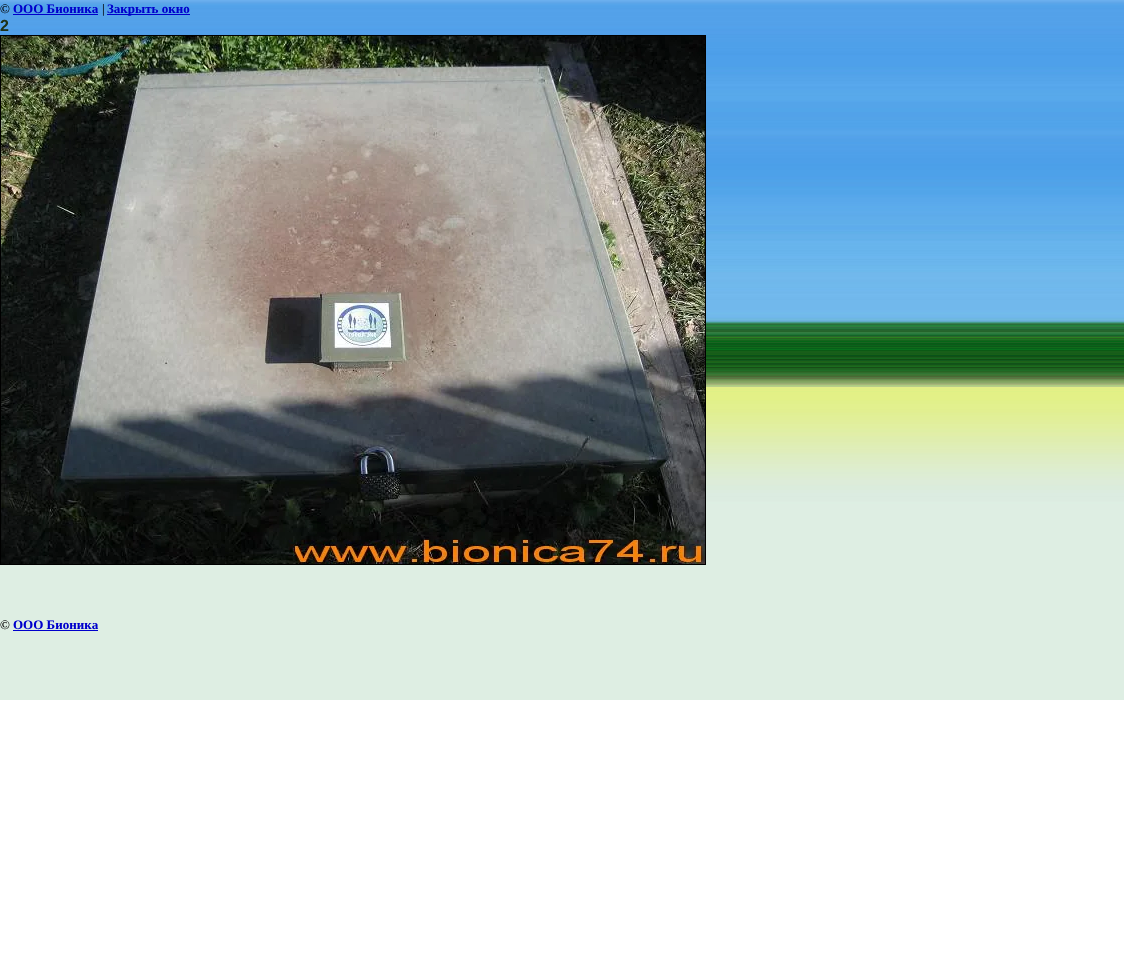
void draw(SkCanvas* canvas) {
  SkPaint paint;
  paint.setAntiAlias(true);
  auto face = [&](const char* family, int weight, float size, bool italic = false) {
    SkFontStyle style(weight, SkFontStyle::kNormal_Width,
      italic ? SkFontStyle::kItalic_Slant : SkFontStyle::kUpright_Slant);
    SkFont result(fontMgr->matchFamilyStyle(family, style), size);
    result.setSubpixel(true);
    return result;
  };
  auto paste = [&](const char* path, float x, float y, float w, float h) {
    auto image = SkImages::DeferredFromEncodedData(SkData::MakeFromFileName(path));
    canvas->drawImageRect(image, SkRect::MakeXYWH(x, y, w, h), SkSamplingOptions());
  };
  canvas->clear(0xffffffff);
  paste("img/1.png", 0, 0, 1124, 700);
  paint.setColor(0xff0000cc);
  canvas->drawRect(SkRect::MakeXYWH(13, 14, 85, 1), paint);
  canvas->drawRect(SkRect::MakeXYWH(107, 14, 83, 1), paint);
  paint.setStroke(true);
  paint.setStrokeWidth(1);
  paint.setColor(0xff000000);
  canvas->drawRect(SkRect::MakeXYWH(0.5f, 35.5f, 705, 529), paint);
  paste("img/2.png", 1, 36, 704, 528);
  paint.setStroke(false);
  paint.setColor(0xff0000cc);
  canvas->drawRect(SkRect::MakeXYWH(13, 630, 85, 1), paint);
  auto f0 = face("Liberation Serif", 400, 13);
  paint.setColor(0xff000000);
  canvas->drawString("©", 0, 13, f0, paint);
  auto f1 = face("Liberation Serif", 700, 13);
  paint.setColor(0xff0000cc);
  canvas->drawString("ООО Бионика", 13, 13, f1, paint);
  paint.setColor(0xff000000);
  canvas->drawString("|", 102, 13, f0, paint);
  paint.setColor(0xff0000cc);
  canvas->drawString("Закрыть окно", 107, 13, f1, paint);
  auto f2 = face("Liberation Sans", 700, 16);
  paint.setColor(0xff1e3219);
  canvas->drawString("2", 0, 31, f2, paint);
  paint.setColor(0xff000000);
  canvas->drawString("©", 0, 629, f0, paint);
  paint.setColor(0xff0000cc);
  canvas->drawString("ООО Бионика", 13, 629, f1, paint);
}
